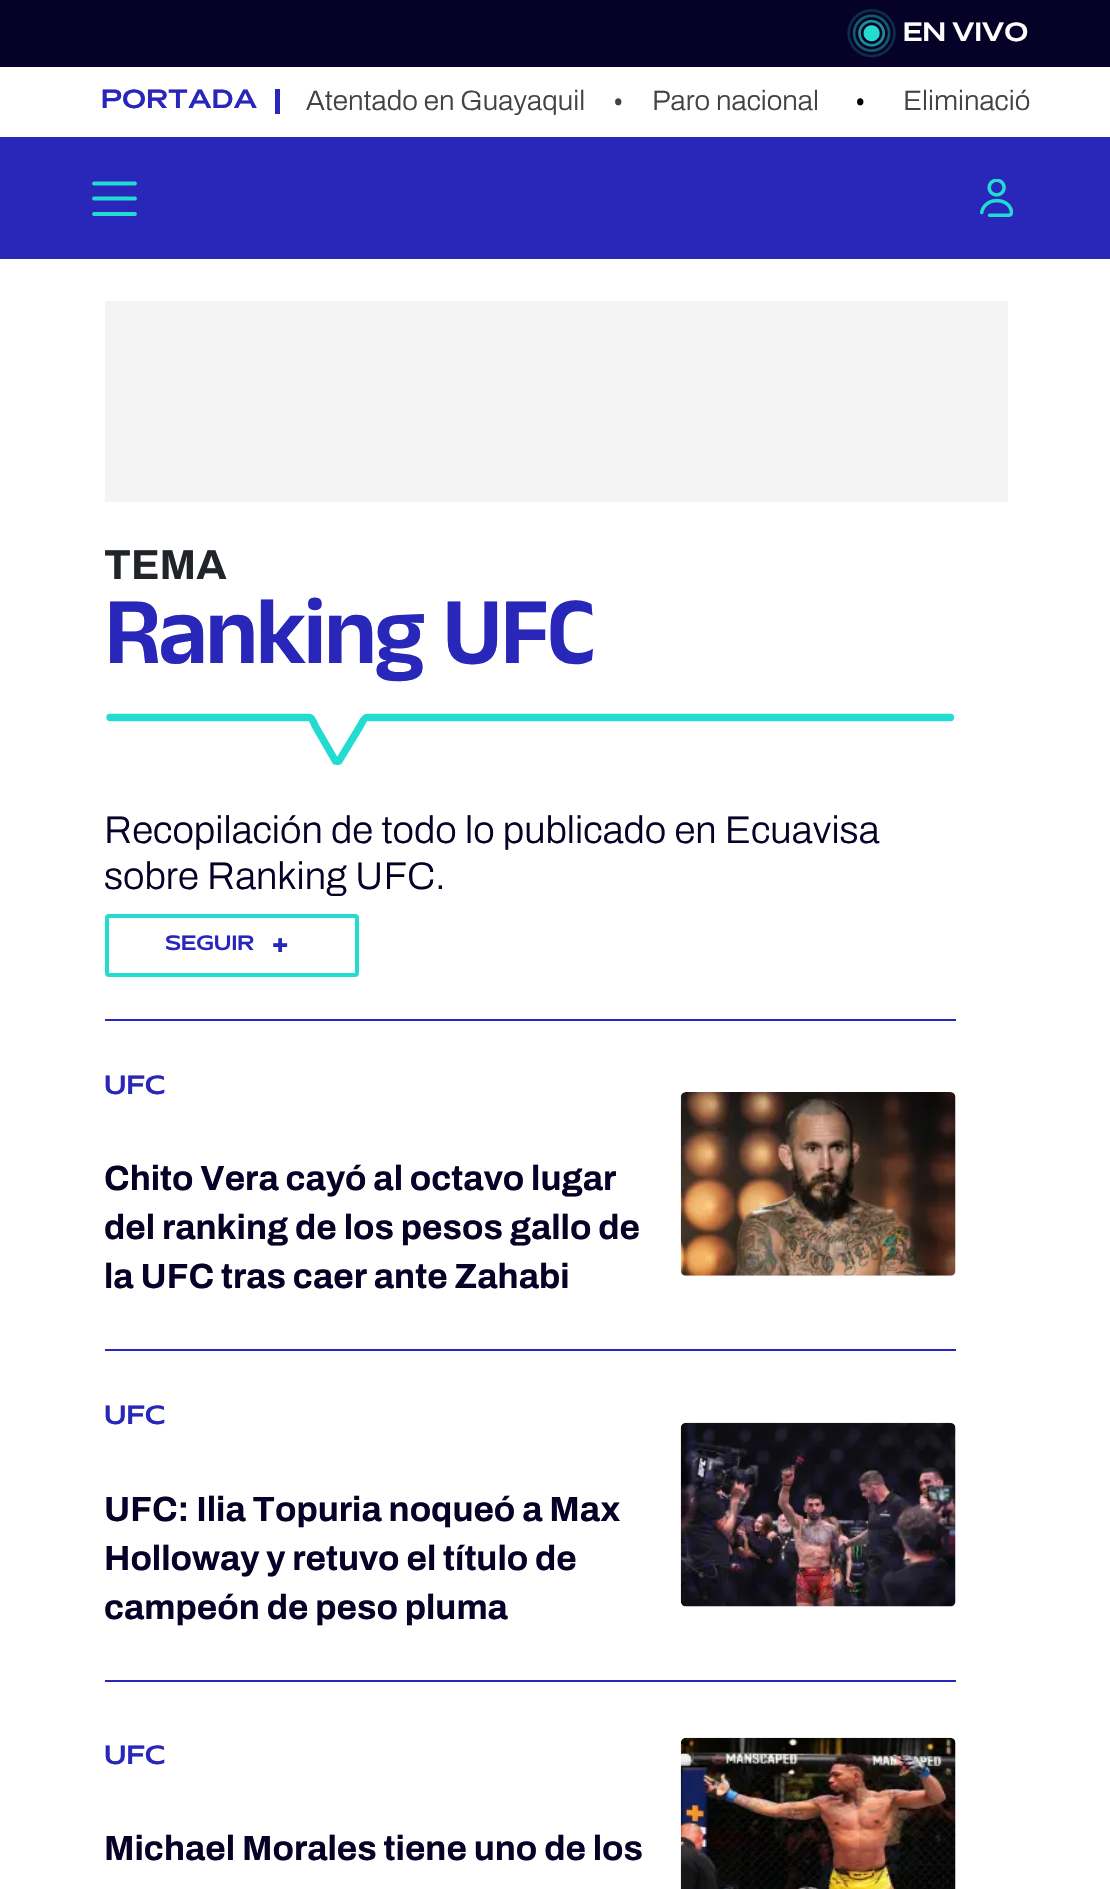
void draw(SkCanvas* canvas) {
  SkPaint paint;
  paint.setAntiAlias(true);
  auto face = [&](const char* family, int weight, float size, bool italic = false) {
    SkFontStyle style(weight, SkFontStyle::kNormal_Width,
      italic ? SkFontStyle::kItalic_Slant : SkFontStyle::kUpright_Slant);
    SkFont result(fontMgr->matchFamilyStyle(family, style), size);
    result.setSubpixel(true);
    return result;
  };
  auto writeSpaced = [&](const char* s, float x, float y, const SkFont& font, const SkPaint& ink, float letter, float word) {
    std::vector<SkGlyphID> glyphs(font.countText(s, strlen(s), SkTextEncoding::kUTF8));
    std::vector<float> xs(glyphs.size());
    font.textToGlyphs(s, strlen(s), SkTextEncoding::kUTF8, glyphs);
    font.getXPos(glyphs, xs, x);
    float extra = 0;
    for (size_t i = 0; i < glyphs.size(); i++) {
      xs[i] += extra;
      extra += letter + word * (glyphs[i] == font.unicharToGlyph(' '));
    }
    canvas->drawTextBlob(SkTextBlob::MakeFromPosHGlyphs(glyphs, xs, y, font), 0, 0, ink);
  };
  auto paste = [&](const char* path, float x, float y, float w, float h) {
    auto image = SkImages::DeferredFromEncodedData(SkData::MakeFromFileName(path));
    canvas->drawImageRect(image, SkRect::MakeXYWH(x, y, w, h), SkSamplingOptions());
  };
  auto shape = [&](const char* data, bool evenOdd = false) {
    SkPath result = *SkParsePath::FromSVGString(data);
    if (evenOdd) result.setFillType(SkPathFillType::kEvenOdd);
    return result;
  };
  canvas->clear(0xffffffff);
  paint.setColor(0xff2927b9);
  canvas->drawRect(SkRect::MakeXYWH(0, 137, 1110, 122), paint);
  paint.setColor(0xff060127);
  canvas->drawRect(SkRect::MakeXYWH(0, 0, 1110, 67), paint);
  paste("img/1.png", 847, 9, 49, 49);
  paint.setColor(0xff2927b9);
  canvas->drawRect(SkRect::MakeXYWH(275, 89, 5, 25), paint);
  paint.setStroke(true);
  paint.setStrokeWidth(3.8f);
  paint.setStrokeCap(SkPaint::kRound_Cap);
  paint.setStrokeJoin(SkPaint::kRound_Join);
  paint.setColor(0xff23dcd1);
  canvas->drawPath(shape("M94 183.5H135M94 198.5H135M94 214H135"), paint);
  paste("img/2.png", 980, 179, 33, 38);
  paint.setStroke(false);
  paint.setColor(0xfff4f4f4);
  canvas->drawRect(SkRect::MakeXYWH(105, 301, 903, 201), paint);
  paint.setStroke(true);
  paint.setStrokeWidth(7.4f);
  paint.setStrokeJoin(SkPaint::kMiter_Join);
  paint.setColor(0xff23dcd1);
  canvas->drawPath(shape("M110 717.5H309.5C312.5 718 313.5 722.5 315 725.5L335.5 761L337.5 761.5L339 761L360.5 725.5C361.5 724 364 717.5 367 717.5H950.5"), paint);
  paint.setStrokeWidth(4);
  paint.setStrokeCap(SkPaint::kButt_Cap);
  canvas->drawRoundRect(SkRect::MakeXYWH(107, 916, 250, 59), 2, 2, paint);
  paint.setStroke(false);
  paint.setColor(0xff2927b9);
  canvas->drawRect(SkRect::MakeXYWH(105, 1019, 851, 2), paint);
  canvas->drawRect(SkRect::MakeXYWH(105, 1349, 851, 2), paint);
  paste("img/3.png", 680, 1092, 276, 184);
  canvas->drawRect(SkRect::MakeXYWH(105, 1680, 851, 2), paint);
  paste("img/4.png", 680, 1422, 276, 185);
  paste("img/5.png", 680, 1737, 276, 152);
  auto f0 = face("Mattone", 600, 24.5f);
  paint.setColor(0xffffffff);
  canvas->drawString("EN VIVO", 903, 41, f0, paint);
  paint.setColor(0xff2927b9);
  canvas->drawString("PORTADA", 101, 108, f0, paint);
  auto f1 = face("Archivo", 300, 28);
  paint.setColor(0xff434343);
  canvas->drawString("Atentado en Guayaquil", 306, 110, f1, paint);
  auto f2 = face("Noto Sans", 400, 28);
  canvas->drawString("•", 613, 112, f2, paint);
  canvas->drawString("Paro nacional", 652, 110, f1, paint);
  paint.setColor(0xff000000);
  canvas->drawString("•", 855, 112, f2, paint);
  paint.setColor(0xff434343);
  canvas->drawString("Eliminació", 903, 110, f1, paint);
  auto f3 = face("Archivo", 700, 42);
  paint.setColor(0xff212529);
  canvas->drawString("TEMA", 104, 579, f3, paint);
  auto f4 = face("Anek Malayalam", 600, 96.25f);
  paint.setColor(0xff2927b9);
  writeSpaced("Ranking UFC", 104, 663, f4, paint, -2.9f, 0);
  auto f5 = face("Archivo", 300, 38.5f);
  paint.setColor(0xff060127);
  canvas->drawString("Recopilación de todo lo publicado en Ecuavisa", 104, 843, f5, paint);
  canvas->drawString("sobre Ranking UFC.", 104, 889, f5, paint);
  auto f6 = face("Mattone", 600, 19.25f);
  paint.setColor(0xff2927b9);
  canvas->drawString("SEGUIR", 165, 950, f6, paint);
  auto f7 = face("Noto Sans", 900, 28);
  canvas->drawString("+", 272, 955, f7, paint);
  canvas->drawString("UFC", 104, 1094, f0, paint);
  auto f8 = face("Archivo", 700, 35);
  paint.setColor(0xff060127);
  {
    const struct { const char* s; float x, y; } items[] = {
      {"Chito Vera cayó al octavo lugar", 104, 1190},
      {"del ranking de los pesos gallo de", 104, 1239},
      {"la UFC tras caer ante Zahabi", 104, 1288},
    };
    for (auto [s, x, y] : items) {
      canvas->drawString(s, x, y, f8, paint);
    }
  }
  paint.setColor(0xff2927b9);
  canvas->drawString("UFC", 104, 1424, f0, paint);
  paint.setColor(0xff060127);
  {
    const struct { const char* s; float x, y; } items[] = {
      {"UFC: Ilia Topuria noqueó a Max", 104, 1521},
      {"Holloway y retuvo el título de", 104, 1570},
      {"campeón de peso pluma", 104, 1619},
    };
    for (auto [s, x, y] : items) {
      canvas->drawString(s, x, y, f8, paint);
    }
  }
  paint.setColor(0xff2927b9);
  canvas->drawString("UFC", 104, 1764, f0, paint);
  paint.setColor(0xff060127);
  canvas->drawString("Michael Morales tiene uno de los", 104, 1860, f8, paint);
}
